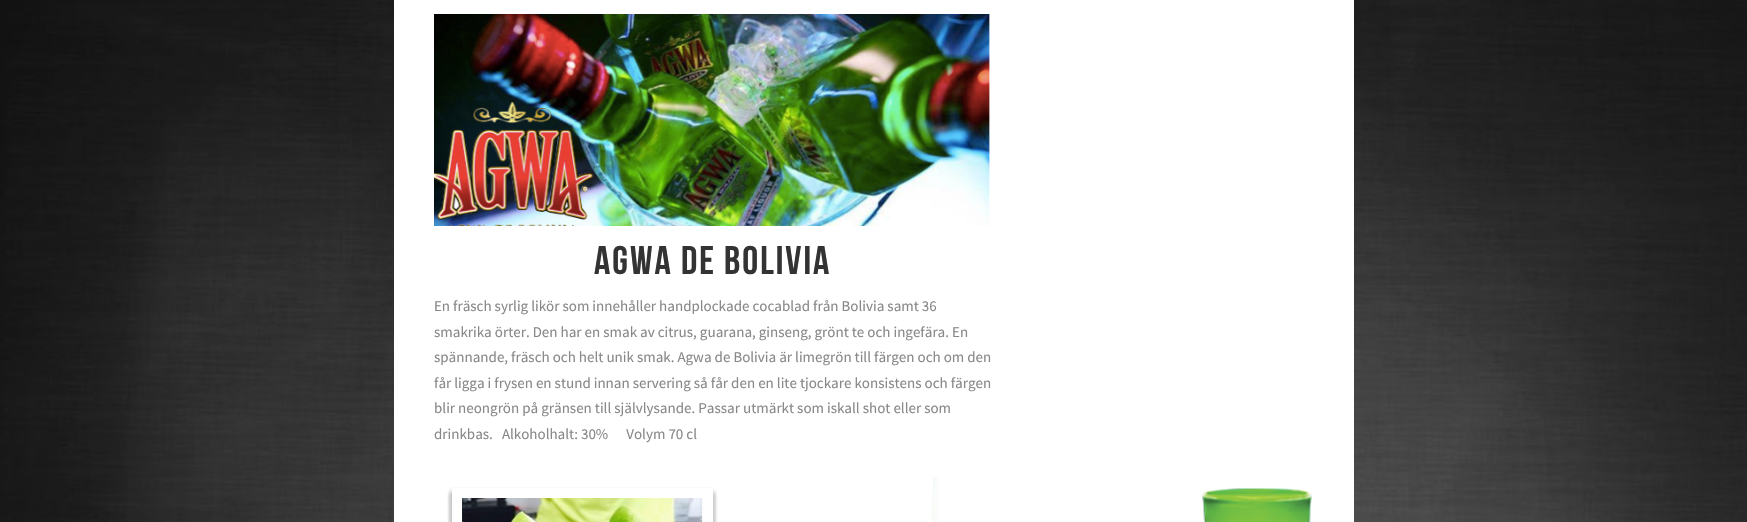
void draw(SkCanvas* canvas) {
  SkPaint paint;
  paint.setAntiAlias(true);
  auto face = [&](const char* family, int weight, float size, bool italic = false) {
    SkFontStyle style(weight, SkFontStyle::kNormal_Width,
      italic ? SkFontStyle::kItalic_Slant : SkFontStyle::kUpright_Slant);
    SkFont result(fontMgr->matchFamilyStyle(family, style), size);
    result.setSubpixel(true);
    return result;
  };
  auto writeSpaced = [&](const char* s, float x, float y, const SkFont& font, const SkPaint& ink, float letter, float word) {
    std::vector<SkGlyphID> glyphs(font.countText(s, strlen(s), SkTextEncoding::kUTF8));
    std::vector<float> xs(glyphs.size());
    font.textToGlyphs(s, strlen(s), SkTextEncoding::kUTF8, glyphs);
    font.getXPos(glyphs, xs, x);
    float extra = 0;
    for (size_t i = 0; i < glyphs.size(); i++) {
      xs[i] += extra;
      extra += letter + word * (glyphs[i] == font.unicharToGlyph(' '));
    }
    canvas->drawTextBlob(SkTextBlob::MakeFromPosHGlyphs(glyphs, xs, y, font), 0, 0, ink);
  };
  auto paste = [&](const char* path, float x, float y, float w, float h) {
    auto image = SkImages::DeferredFromEncodedData(SkData::MakeFromFileName(path));
    canvas->drawImageRect(image, SkRect::MakeXYWH(x, y, w, h), SkSamplingOptions());
  };
  canvas->clear(0xffffffff);
  paste("img/1.png", 0, 0, 1747, 522);
  paint.setColor(0xffffffff);
  canvas->drawRect(SkRect::MakeXYWH(394, 0, 960, 522), paint);
  paste("img/2.png", 434, 14, 556, 212);
  paste("img/3.png", 447, 477, 491, 45);
  paste("img/4.png", 1202, 488, 110, 34);
  auto f0 = face("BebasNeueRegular", 400, 40);
  paint.setColor(0xff333333);
  writeSpaced("AGWA DE BOLIVIA", 594, 274, f0, paint, 2, 0);
  auto f1 = face("Source Sans Pro", 400, 15);
  paint.setColor(0xff888888);
  {
    const struct { const char* s; float x, y; } items[] = {
      {"En fräsch syrlig likör som innehåller handplockade cocablad från Bolivia samt 36", 434, 311},
      {"smakrika örter. Den har en smak av citrus, guarana, ginseng, grönt te och ingefära. En", 434, 337},
      {"spännande, fräsch och helt unik smak. Agwa de Bolivia är limegrön till färgen och om den", 434, 362},
      {"får ligga i frysen en stund innan servering så får den en lite tjockare konsistens och färgen", 434, 388},
      {"blir neongrön på gränsen till självlysande. Passar utmärkt som iskall shot eller som", 434, 413},
      {"drinkbas.   Alkoholhalt: 30%      Volym 70 cl", 434, 439},
    };
    for (auto [s, x, y] : items) {
      canvas->drawString(s, x, y, f1, paint);
    }
  }
}
